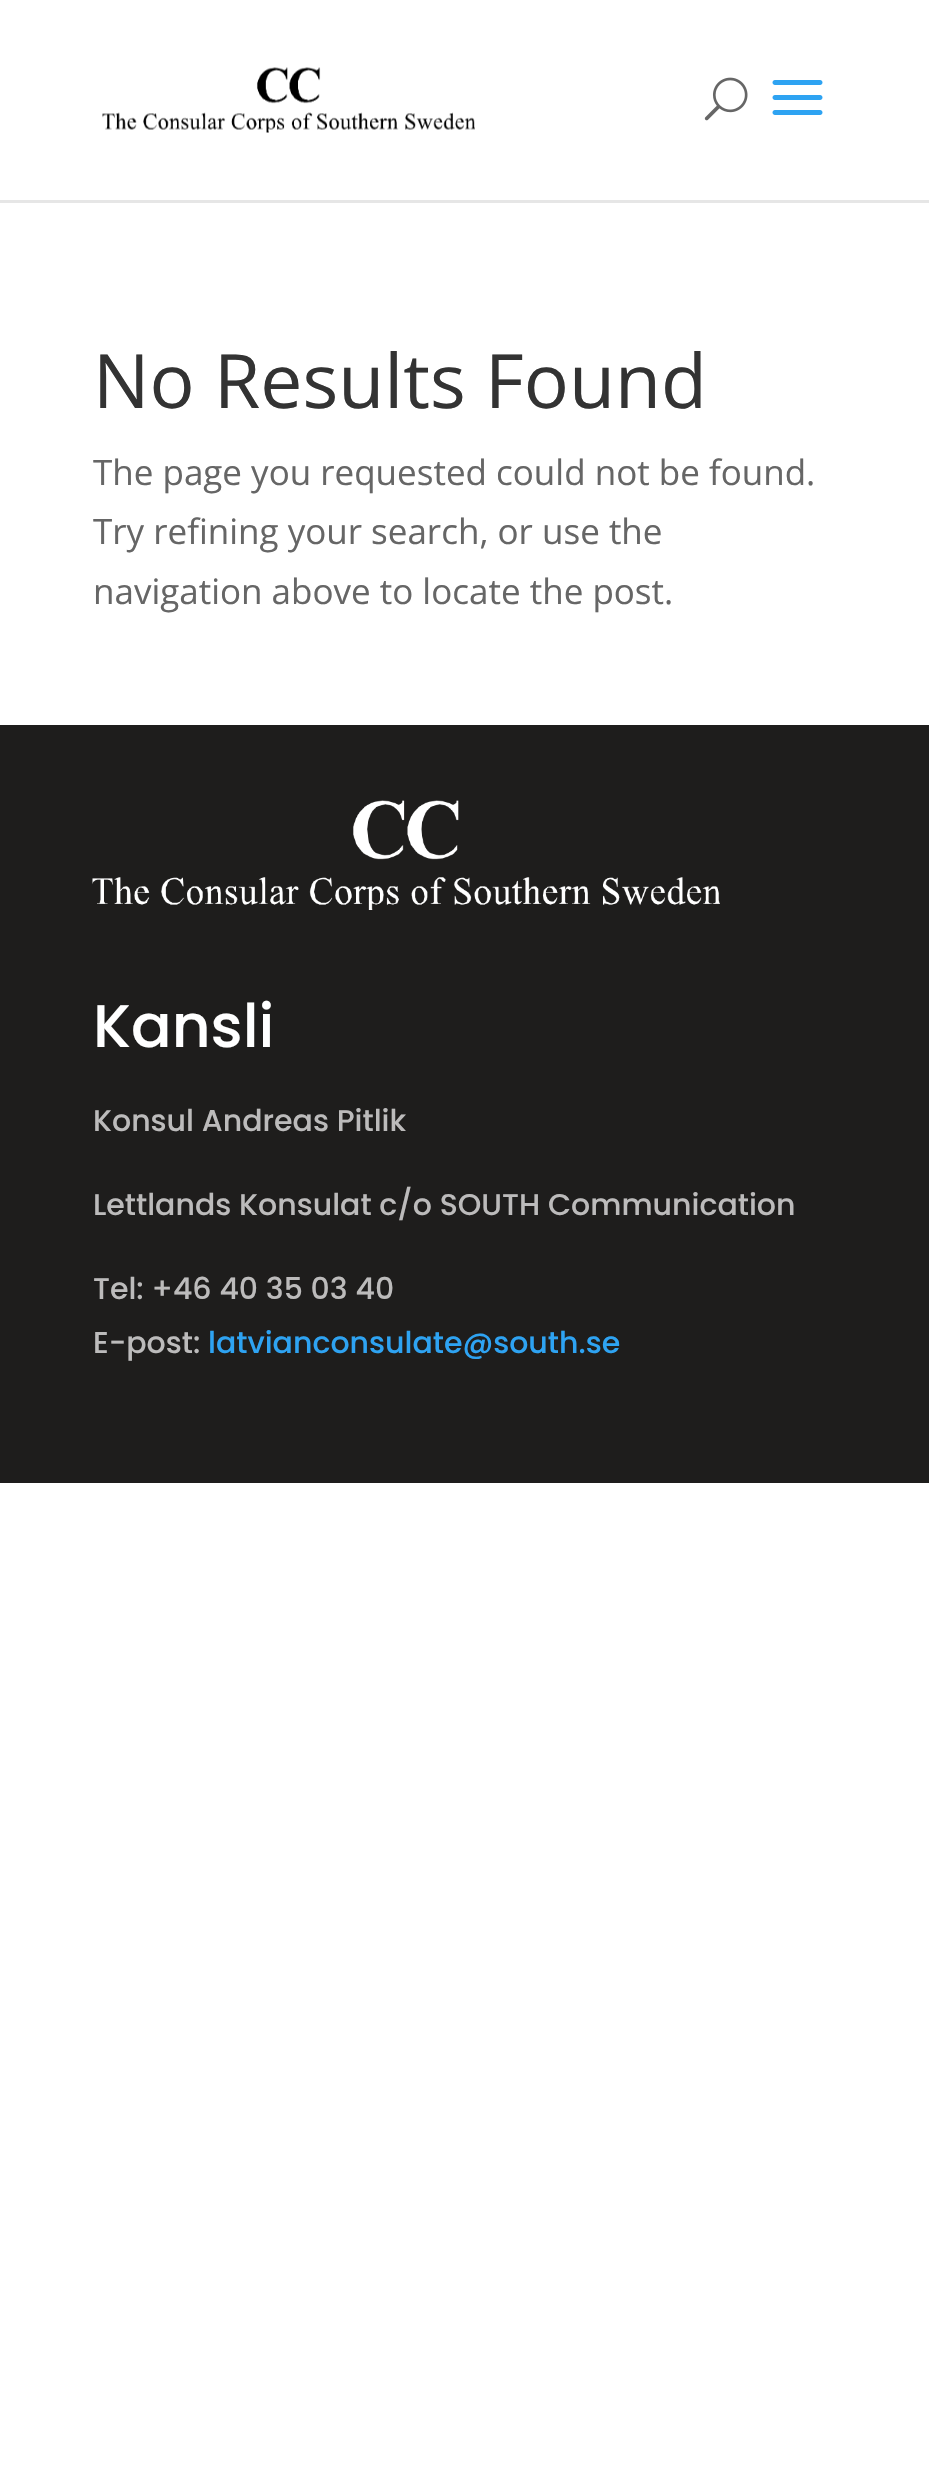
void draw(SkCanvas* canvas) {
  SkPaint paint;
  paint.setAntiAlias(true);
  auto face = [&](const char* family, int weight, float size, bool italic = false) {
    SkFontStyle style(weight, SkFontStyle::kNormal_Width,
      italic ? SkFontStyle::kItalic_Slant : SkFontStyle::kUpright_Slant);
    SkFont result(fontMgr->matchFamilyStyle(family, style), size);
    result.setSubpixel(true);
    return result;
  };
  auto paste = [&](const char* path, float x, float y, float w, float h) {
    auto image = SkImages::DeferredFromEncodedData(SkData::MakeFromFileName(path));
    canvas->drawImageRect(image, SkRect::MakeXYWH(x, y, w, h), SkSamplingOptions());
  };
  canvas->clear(0xffffffff);
  paint.setColor(0xffe6e6e6);
  canvas->drawRect(SkRect::MakeXYWH(0, 200, 929, 3), paint);
  paste("img/1.png", 102, 67, 373, 66);
  paste("img/2.png", 704, 77, 44, 44);
  paste("img/3.png", 772, 80, 51, 35);
  paint.setColor(0xff1e1d1c);
  canvas->drawRect(SkRect::MakeXYWH(0, 725, 929, 758), paint);
  paste("img/4.png", 92, 800, 628, 110);
  auto f0 = face("Open Sans", 400, 75);
  paint.setColor(0xff333333);
  canvas->drawString("No Results Found", 93, 408, f0, paint);
  auto f1 = face("Open Sans", 400, 35);
  paint.setColor(0xff666666);
  {
    const struct { const char* s; float x, y; } items[] = {
      {"The page you requested could not be found.", 93, 485},
      {"Try refining your search, or use the", 93, 544},
      {"navigation above to locate the post.", 93, 604},
    };
    for (auto [s, x, y] : items) {
      canvas->drawString(s, x, y, f1, paint);
    }
  }
  auto f2 = face("Poppins", 500, 60);
  paint.setColor(0xffffffff);
  canvas->drawString("Kansli", 93, 1047, f2, paint);
  auto f3 = face("Poppins", 500, 30);
  paint.setColor(0xffbcbbbb);
  {
    const struct { const char* s; float x, y; } items[] = {
      {"Konsul Andreas Pitlik", 93, 1131},
      {"Lettlands Konsulat c/o SOUTH Communication", 93, 1215},
      {"Tel: +46 40 35 03 40", 93, 1299},
      {"E-post:", 93, 1353},
    };
    for (auto [s, x, y] : items) {
      canvas->drawString(s, x, y, f3, paint);
    }
  }
  paint.setColor(0xff2ea3f2);
  canvas->drawString("latvianconsulate@south.se", 208, 1353, f3, paint);
}
